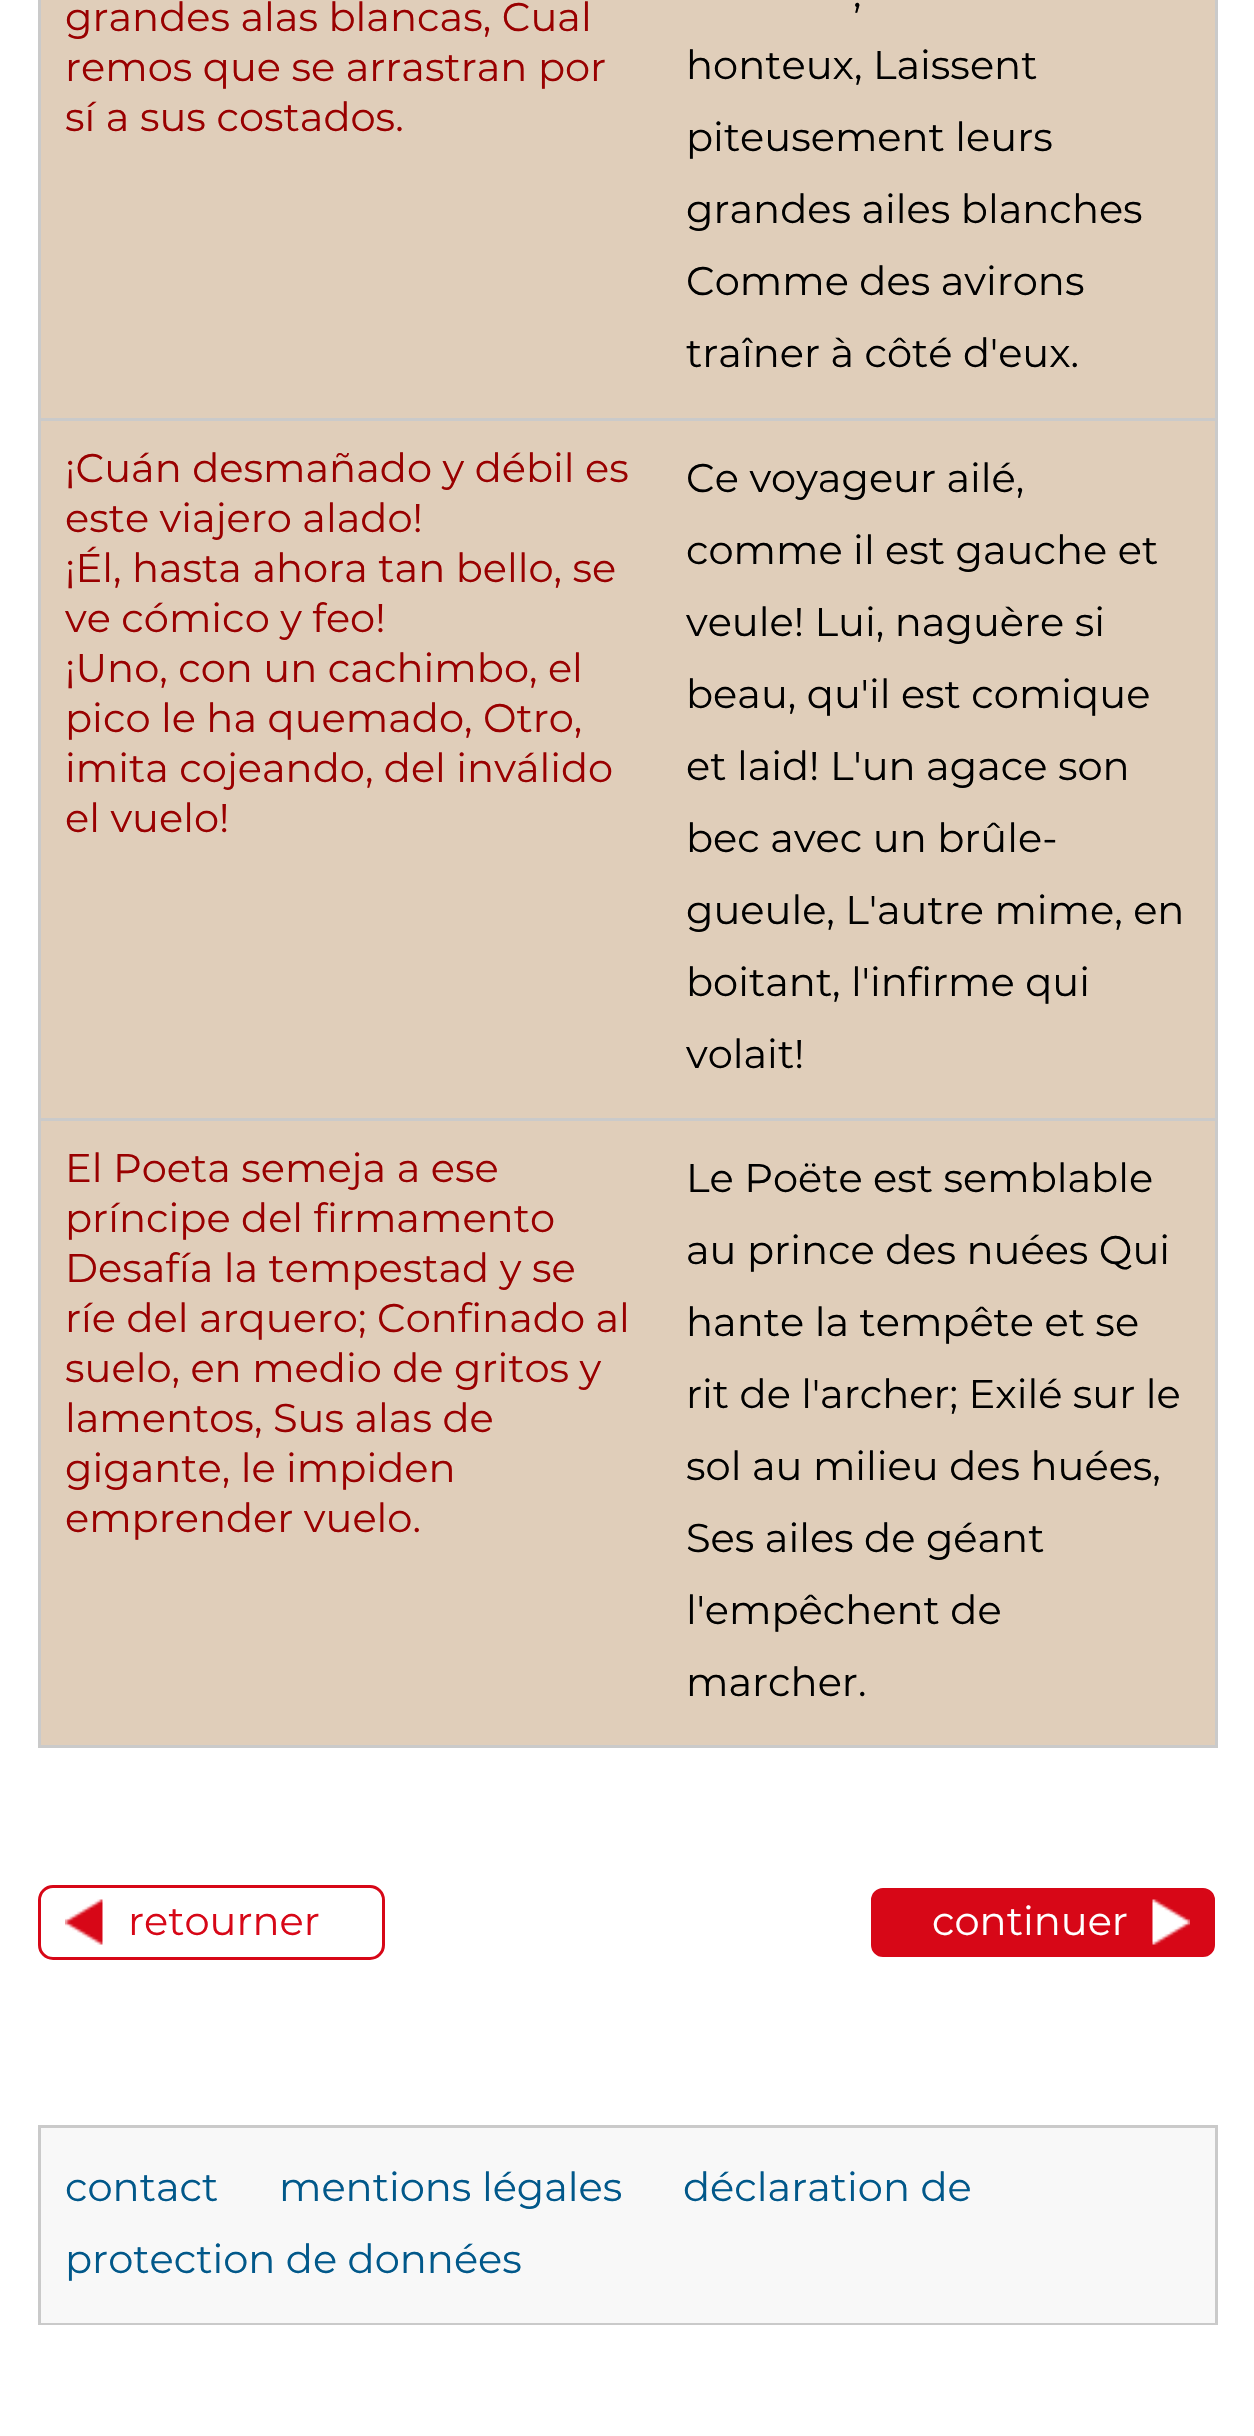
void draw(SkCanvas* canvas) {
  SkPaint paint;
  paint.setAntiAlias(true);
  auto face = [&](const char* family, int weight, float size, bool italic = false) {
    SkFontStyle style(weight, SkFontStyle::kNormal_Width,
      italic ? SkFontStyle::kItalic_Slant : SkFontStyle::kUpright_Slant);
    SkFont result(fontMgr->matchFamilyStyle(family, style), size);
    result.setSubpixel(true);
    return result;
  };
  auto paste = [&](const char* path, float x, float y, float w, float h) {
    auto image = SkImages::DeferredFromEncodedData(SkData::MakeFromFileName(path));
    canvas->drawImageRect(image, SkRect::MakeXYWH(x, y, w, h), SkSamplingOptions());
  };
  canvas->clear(0xffffffff);
  {
    const struct { float x, y, w, h; SkColor color; } items[] = {
      {1215, 0, 3, 1748, 0xffcacaca},
      {38, 1745, 1180, 3, 0xffcacaca},
      {38, 0, 3, 1748, 0xffcacaca},
      {41, 0, 1174, 418, 0xffe0ceba},
      {38, 418, 1180, 3, 0xffcacaca},
      {41, 421, 1174, 697, 0xffe0ceba},
      {38, 1118, 1180, 3, 0xffcacaca},
      {41, 1121, 1174, 624, 0xffe0ceba},
    };
    for (auto [x, y, w, h, color] : items) {
      paint.setColor(color);
      canvas->drawRect(SkRect::MakeXYWH(x, y, w, h), paint);
    }
  }
  paint.setStroke(true);
  paint.setStrokeWidth(3);
  paint.setColor(0xffd70717);
  canvas->drawRoundRect(SkRect::MakeXYWH(39.5f, 1886.5f, 344, 72), 13.5f, 13.5f, paint);
  paste("img/1.png", 65, 1899, 38, 46);
  paint.setStroke(false);
  canvas->drawRoundRect(SkRect::MakeXYWH(869.5f, 1886.5f, 347, 72), 13.5f, 13.5f, paint);
  paint.setStroke(true);
  paint.setColor(0xffffffff);
  canvas->drawRoundRect(SkRect::MakeXYWH(869.5f, 1886.5f, 347, 72), 13.5f, 13.5f, paint);
  paste("img/2.png", 1152, 1899, 38, 46);
  paint.setStroke(false);
  {
    const struct { float x, y, w, h; SkColor color; } items[] = {
      {38, 2125, 1180, 3, 0xffcacaca},
      {1215, 2125, 3, 200, 0xffcacaca},
      {38, 2323, 1180, 2, 0xffcacaca},
      {38, 2125, 3, 200, 0xffcacaca},
      {41, 2128, 1174, 195, 0xfff8f8f8},
    };
    for (auto [x, y, w, h, color] : items) {
      paint.setColor(color);
      canvas->drawRect(SkRect::MakeXYWH(x, y, w, h), paint);
    }
  }
  auto f0 = face("Montserrat", 400, 40);
  paint.setColor(0xff990000);
  {
    const struct { const char* s; float x, y; } items[] = {
      {"grandes alas blancas, Cual", 65, 31},
      {"remos que se arrastran por", 65, 81},
      {"sí a sus costados.", 65, 131},
    };
    for (auto [s, x, y] : items) {
      canvas->drawString(s, x, y, f0, paint);
    }
  }
  paint.setColor(0xff000000);
  {
    const struct { const char* s; float x, y; } items[] = {
      {",", 853, 7},
      {"honteux, Laissent", 686, 79},
      {"piteusement leurs", 686, 151},
      {"grandes ailes blanches", 686, 223},
      {"Comme des avirons", 686, 295},
      {"traîner à côté d'eux.", 686, 367},
    };
    for (auto [s, x, y] : items) {
      canvas->drawString(s, x, y, f0, paint);
    }
  }
  paint.setColor(0xff990000);
  {
    const struct { const char* s; float x, y; } items[] = {
      {"¡Cuán desmañado y débil es", 65, 482},
      {"este viajero alado!", 65, 532},
      {"¡Él, hasta ahora tan bello, se", 65, 582},
      {"ve cómico y feo!", 65, 632},
      {"¡Uno, con un cachimbo, el", 65, 682},
      {"pico le ha quemado, Otro,", 65, 732},
      {"imita cojeando, del inválido", 65, 782},
      {"el vuelo!", 65, 832},
    };
    for (auto [s, x, y] : items) {
      canvas->drawString(s, x, y, f0, paint);
    }
  }
  paint.setColor(0xff000000);
  {
    const struct { const char* s; float x, y; } items[] = {
      {"Ce voyageur ailé,", 686, 492},
      {"comme il est gauche et", 686, 564},
      {"veule! Lui, naguère si", 686, 636},
      {"beau, qu'il est comique", 686, 708},
      {"et laid! L'un agace son", 686, 780},
      {"bec avec un brûle-", 686, 852},
      {"gueule, L'autre mime, en", 686, 924},
      {"boitant, l'infirme qui", 686, 996},
      {"volait!", 686, 1068},
    };
    for (auto [s, x, y] : items) {
      canvas->drawString(s, x, y, f0, paint);
    }
  }
  paint.setColor(0xff990000);
  {
    const struct { const char* s; float x, y; } items[] = {
      {"El Poeta semeja a ese", 65, 1182},
      {"príncipe del firmamento", 65, 1232},
      {"Desafía la tempestad y se", 65, 1282},
      {"ríe del arquero; Confinado al", 65, 1332},
      {"suelo, en medio de gritos y", 65, 1382},
      {"lamentos, Sus alas de", 65, 1432},
      {"gigante, le impiden", 65, 1482},
      {"emprender vuelo.", 65, 1532},
    };
    for (auto [s, x, y] : items) {
      canvas->drawString(s, x, y, f0, paint);
    }
  }
  paint.setColor(0xff000000);
  {
    const struct { const char* s; float x, y; } items[] = {
      {"Le Poëte est semblable", 686, 1192},
      {"au prince des nuées Qui", 686, 1264},
      {"hante la tempête et se", 686, 1336},
      {"rit de l'archer; Exilé sur le", 686, 1408},
      {"sol au milieu des huées,", 686, 1480},
      {"Ses ailes de géant", 686, 1552},
      {"l'empêchent de", 686, 1624},
      {"marcher.", 686, 1696},
    };
    for (auto [s, x, y] : items) {
      canvas->drawString(s, x, y, f0, paint);
    }
  }
  paint.setColor(0xffd70717);
  canvas->drawString("retourner", 128, 1935, f0, paint);
  paint.setColor(0xffffffff);
  canvas->drawString("continuer", 932, 1935, f0, paint);
  paint.setColor(0xff01588a);
  {
    const struct { const char* s; float x, y; } items[] = {
      {"contact", 65, 2201},
      {"mentions légales", 279, 2201},
      {"déclaration de", 683, 2201},
      {"protection de données", 65, 2273},
    };
    for (auto [s, x, y] : items) {
      canvas->drawString(s, x, y, f0, paint);
    }
  }
}
